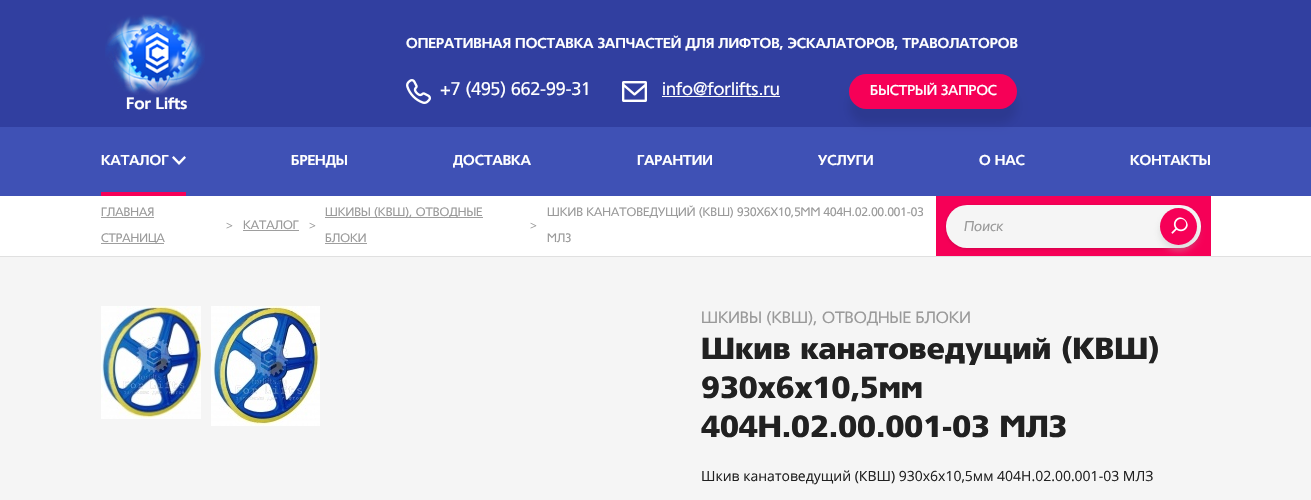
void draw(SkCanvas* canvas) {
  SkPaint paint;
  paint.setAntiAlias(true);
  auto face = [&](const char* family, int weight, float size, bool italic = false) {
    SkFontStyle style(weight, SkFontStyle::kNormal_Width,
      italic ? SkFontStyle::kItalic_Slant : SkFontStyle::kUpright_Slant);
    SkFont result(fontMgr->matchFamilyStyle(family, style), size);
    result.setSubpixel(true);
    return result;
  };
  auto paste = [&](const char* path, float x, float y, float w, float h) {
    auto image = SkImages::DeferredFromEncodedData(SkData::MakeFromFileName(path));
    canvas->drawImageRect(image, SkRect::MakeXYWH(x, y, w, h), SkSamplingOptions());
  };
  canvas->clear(0xffffffff);
  paint.setColor(0xff313fa0);
  canvas->drawRect(SkRect::MakeXYWH(0, 0, 1311, 127), paint);
  paste("img/1.png", 406, 79, 25, 25);
  paste("img/2.png", 622, 81, 25, 21);
  paint.setColor(0xffffffff);
  canvas->drawRect(SkRect::MakeXYWH(662, 96, 118, 1), paint);
  paint.setColor(0xff3f51b5);
  canvas->drawRect(SkRect::MakeXYWH(0, 127, 1311, 69), paint);
  paint.setColor(0x1a000000);
  paint.setMaskFilter(SkMaskFilter::MakeBlur(kNormal_SkBlurStyle, 5));
  canvas->drawRoundRect(SkRect::MakeXYWH(849, 89, 168, 35), 17.5f, 17.5f, paint);
  paint.setMaskFilter(nullptr);
  paint.setColor(0xfff60057);
  canvas->drawRoundRect(SkRect::MakeXYWH(849, 74, 168, 35), 17.5f, 17.5f, paint);
  paste("img/3.png", 105, 14, 100, 81);
  paste("img/4.png", 172, 156, 14, 9);
  {
    const struct { float x, y, w, h; SkColor color; } items[] = {
      {101, 192, 85, 4, 0xfff60057},
      {0, 256, 1311, 1, 0xffe0e0e0},
      {101, 217, 53, 1, 0xff9e9e9e},
      {101, 243, 63, 1, 0xff9e9e9e},
      {243, 230, 56, 1, 0xff9e9e9e},
      {325, 217, 158, 1, 0xff9e9e9e},
      {325, 243, 42, 1, 0xff9e9e9e},
      {936, 196, 275, 60, 0xfff60057},
    };
    for (auto [x, y, w, h, color] : items) {
      paint.setColor(color);
      canvas->drawRect(SkRect::MakeXYWH(x, y, w, h), paint);
    }
  }
  paint.setColor(0x26000000);
  paint.setMaskFilter(SkMaskFilter::MakeBlur(kNormal_SkBlurStyle, 1.5f));
  canvas->drawRoundRect(SkRect::MakeXYWH(946, 206, 255, 43), 21, 21, paint);
  paint.setMaskFilter(nullptr);
  paint.setColor(0xfff5f5f5);
  canvas->drawRoundRect(SkRect::MakeXYWH(946, 205, 255, 43), 21, 21, paint);
  canvas->drawRect(SkRect::MakeXYWH(0, 257, 1311, 243), paint);
  paint.setColor(0x80c5c5c5);
  paint.setMaskFilter(SkMaskFilter::MakeBlur(kNormal_SkBlurStyle, 3.5f));
  canvas->drawRoundRect(SkRect::MakeXYWH(1160, 213, 37, 37), 18.5f, 18.5f, paint);
  paint.setMaskFilter(nullptr);
  paint.setColor(0xfff60057);
  canvas->drawCircle(1178.5f, 226.5f, 18.5f, paint);
  paste("img/5.png", 1171, 217, 17, 17);
  paste("img/6.png", 101, 306, 100, 113);
  paste("img/7.png", 211, 306, 109, 120);
  auto f0 = face("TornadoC", 700, 14);
  paint.setColor(0xffffffff);
  canvas->drawString("ОПЕРАТИВНАЯ ПОСТАВКА ЗАПЧАСТЕЙ ДЛЯ ЛИФТОВ, ЭСКАЛАТОРОВ, ТРАВОЛАТОРОВ", 406, 48, f0, paint);
  auto f1 = face("TornadoC", 400, 18);
  canvas->drawString("+7 (495) 662-99-31", 440, 95, f1, paint);
  canvas->drawString("info@forlifts.ru", 662, 95, f1, paint);
  auto f2 = face("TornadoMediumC", 500, 14);
  canvas->drawString("БЫСТРЫЙ ЗАПРОС", 870, 95, f2, paint);
  auto f3 = face("TornadoC", 700, 16);
  canvas->drawString("For Lifts", 126, 109, f3, paint);
  {
    const struct { const char* s; float x, y; } items[] = {
      {"КАТАЛОГ", 101, 165},
      {"БРЕНДЫ", 291, 165},
      {"ДОСТАВКА", 453, 165},
      {"ГАРАНТИИ", 637, 165},
      {"УСЛУГИ", 818, 165},
      {"О НАС", 979, 165},
      {"КОНТАКТЫ", 1130, 165},
    };
    for (auto [s, x, y] : items) {
      canvas->drawString(s, x, y, f0, paint);
    }
  }
  auto f4 = face("TornadoC", 400, 12);
  paint.setColor(0xff9a9a9a);
  canvas->drawString("ГЛАВНАЯ", 101, 216, f4, paint);
  canvas->drawString("СТРАНИЦА", 101, 242, f4, paint);
  auto f5 = face("Open Sans", 400, 12);
  canvas->drawString(">", 226, 230, f5, paint);
  canvas->drawString("КАТАЛОГ", 243, 229, f4, paint);
  canvas->drawString(">", 309, 230, f5, paint);
  canvas->drawString("ШКИВЫ (КВШ), ОТВОДНЫЕ", 325, 216, f4, paint);
  canvas->drawString("БЛОКИ", 325, 242, f4, paint);
  canvas->drawString(">", 530, 230, f5, paint);
  canvas->drawString("ШКИВ КАНАТОВЕДУЩИЙ (КВШ) 930Х6Х10,5ММ 404Н.02.00.001-03", 547, 216, f4, paint);
  canvas->drawString("МЛЗ", 547, 242, f4, paint);
  auto f6 = face("TornadoC", 400, 14, true);
  canvas->drawString("Поиск", 964, 231, f6, paint);
  auto f7 = face("TornadoC", 400, 16);
  canvas->drawString("ШКИВЫ (КВШ), ОТВОДНЫЕ БЛОКИ", 701, 323, f7, paint);
  auto f8 = face("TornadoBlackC", 900, 30);
  paint.setColor(0xff212121);
  {
    const struct { const char* s; float x, y; } items[] = {
      {"Шкив канатоведущий (КВШ)", 701, 359},
      {"930х6х10,5мм", 701, 398},
      {"404Н.02.00.001-03 МЛЗ", 701, 437},
    };
    for (auto [s, x, y] : items) {
      canvas->drawString(s, x, y, f8, paint);
    }
  }
  auto f9 = face("Open Sans", 400, 14);
  canvas->drawString("Шкив канатоведущий (КВШ) 930х6х10,5мм 404Н.02.00.001-03 МЛЗ", 701, 481, f9, paint);
}
